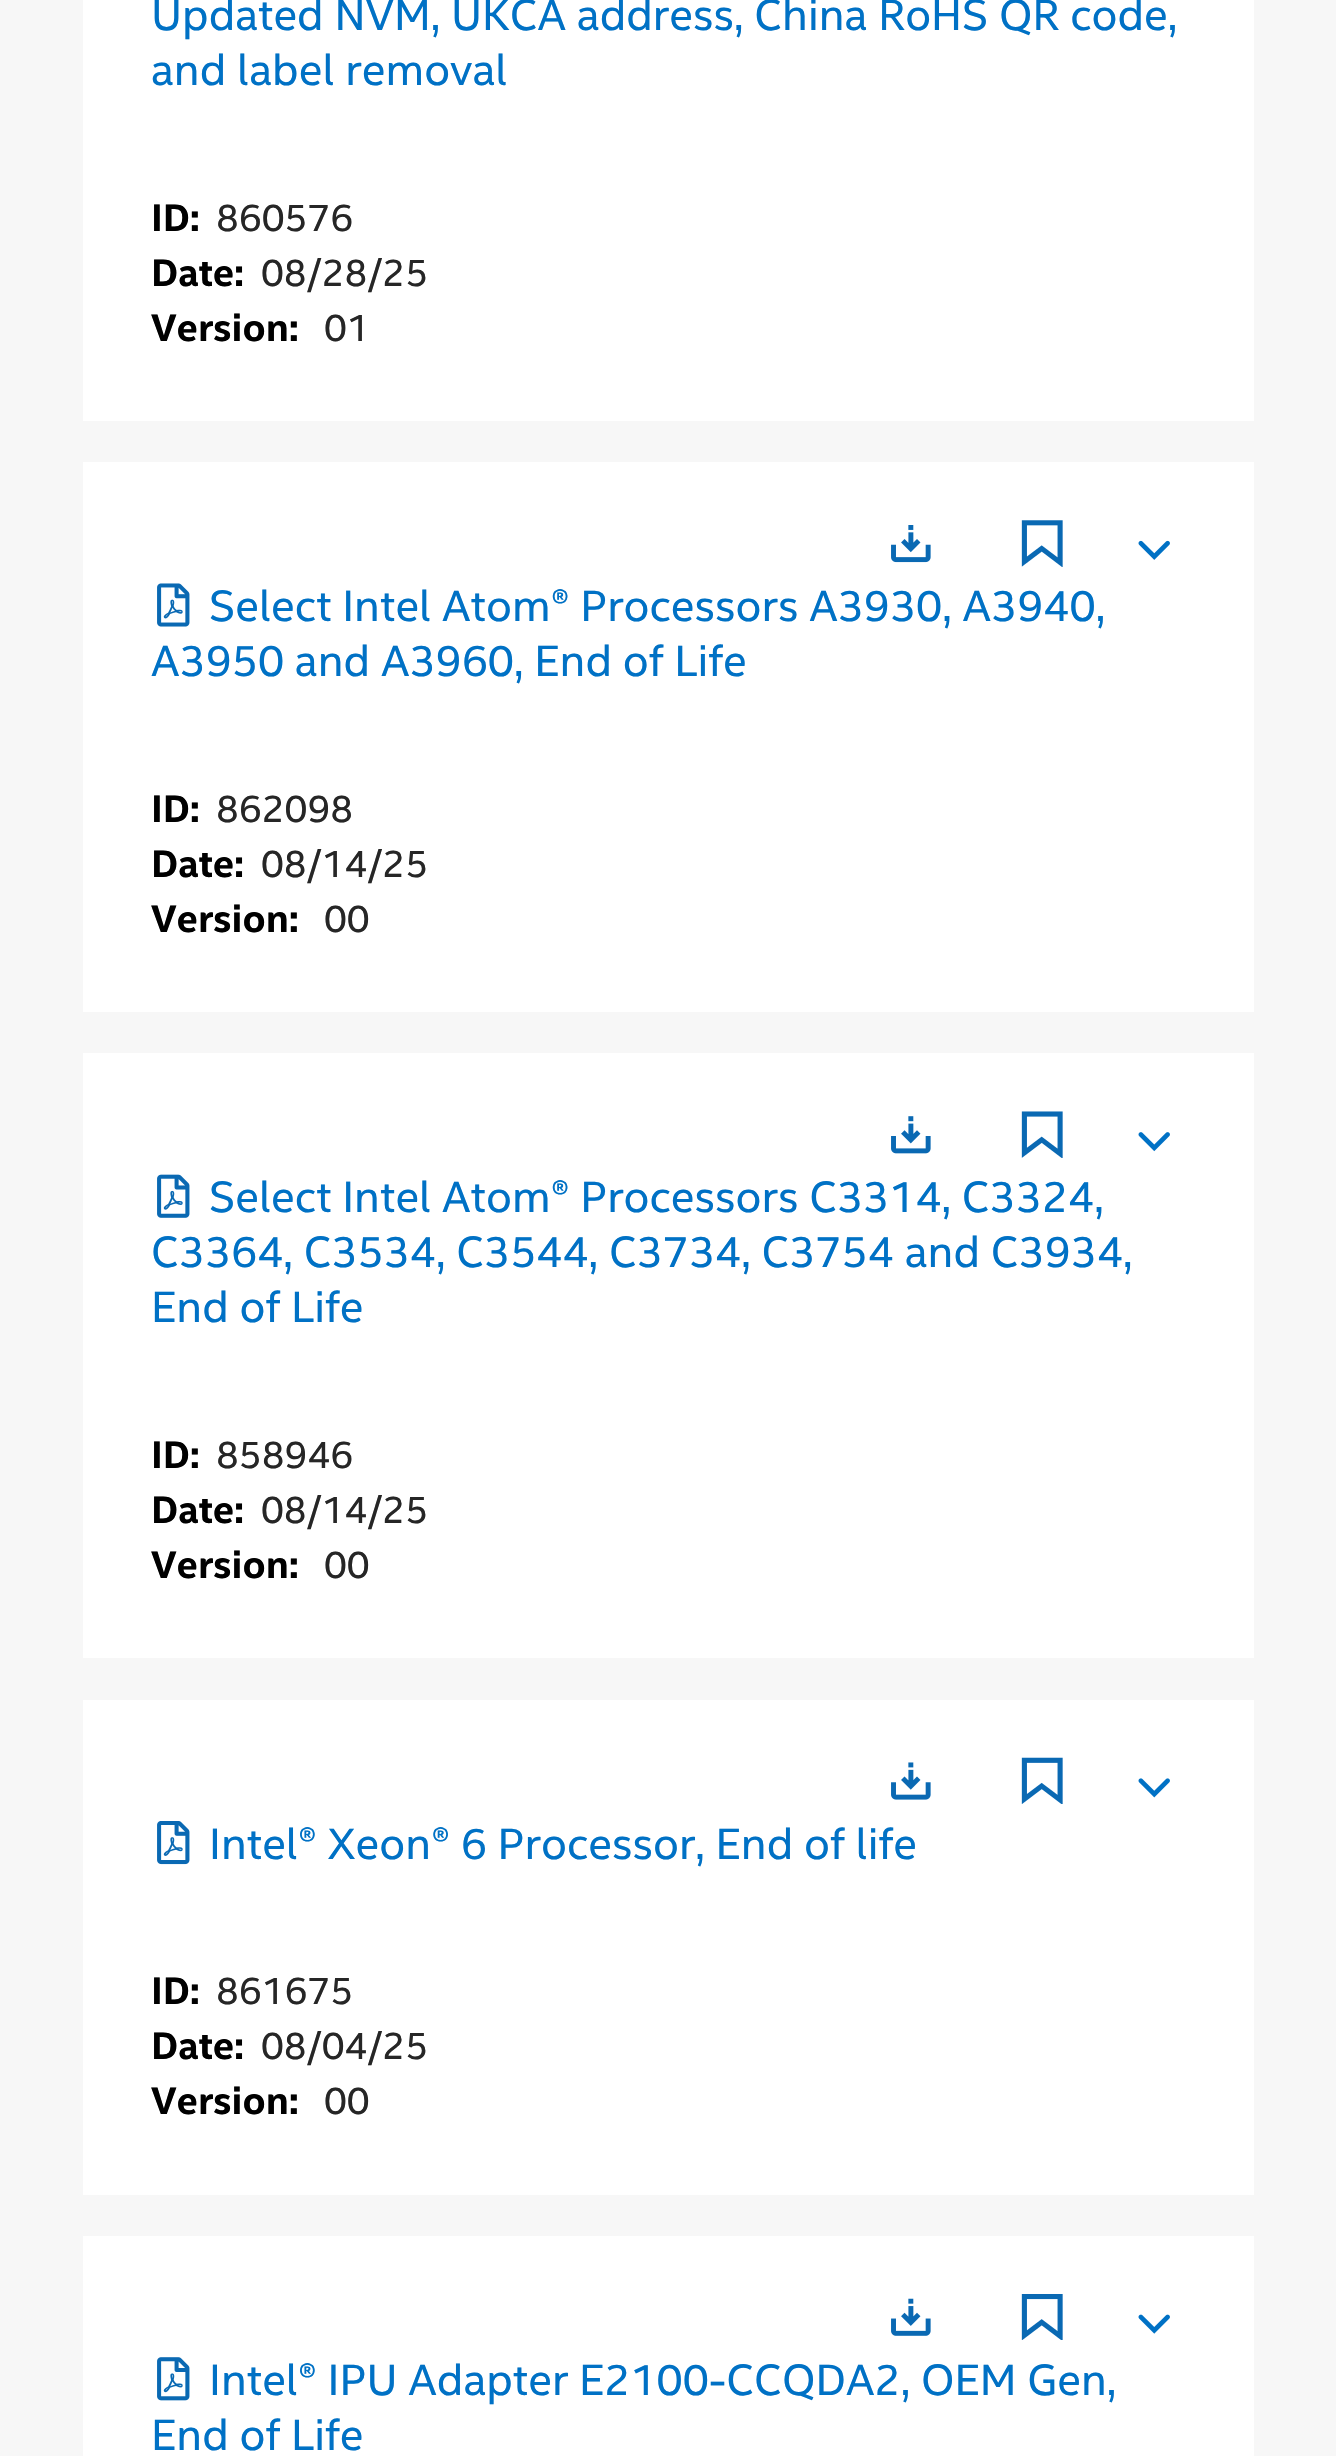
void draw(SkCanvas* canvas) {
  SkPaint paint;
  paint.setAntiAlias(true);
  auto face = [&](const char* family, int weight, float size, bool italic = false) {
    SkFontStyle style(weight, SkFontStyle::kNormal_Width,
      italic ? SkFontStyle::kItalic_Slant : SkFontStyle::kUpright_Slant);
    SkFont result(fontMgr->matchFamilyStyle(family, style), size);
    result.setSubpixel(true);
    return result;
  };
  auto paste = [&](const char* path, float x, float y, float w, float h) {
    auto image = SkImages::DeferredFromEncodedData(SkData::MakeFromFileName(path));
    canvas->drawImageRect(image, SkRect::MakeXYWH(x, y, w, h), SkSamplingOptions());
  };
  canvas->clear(0xfff7f7f7);
  paint.setColor(0xffffffff);
  canvas->drawRect(SkRect::MakeXYWH(83, 0, 1171, 421), paint);
  canvas->drawRect(SkRect::MakeXYWH(83, 462, 1171, 550), paint);
  paste("img/1.png", 891, 525, 40, 38);
  paste("img/2.png", 1021, 520, 42, 47);
  paste("img/3.png", 1138, 540, 32, 20);
  paste("img/4.png", 157, 583, 33, 44);
  canvas->drawRect(SkRect::MakeXYWH(83, 1053, 1171, 605), paint);
  paste("img/5.png", 891, 1116, 40, 38);
  paste("img/6.png", 1021, 1111, 42, 47);
  paste("img/7.png", 1138, 1132, 32, 20);
  paste("img/8.png", 157, 1174, 33, 44);
  canvas->drawRect(SkRect::MakeXYWH(83, 1700, 1171, 495), paint);
  paste("img/9.png", 891, 1762, 40, 38);
  paste("img/10.png", 1021, 1757, 42, 47);
  paste("img/11.png", 1138, 1778, 32, 20);
  paste("img/12.png", 157, 1821, 33, 44);
  canvas->drawRect(SkRect::MakeXYWH(83, 2236, 1171, 220), paint);
  paste("img/13.png", 891, 2298, 40, 38);
  paste("img/14.png", 1021, 2294, 42, 46);
  paste("img/15.png", 1138, 2314, 32, 20);
  paste("img/16.png", 157, 2357, 33, 44);
  auto f0 = face("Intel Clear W", 400, 44);
  paint.setColor(0xff0071c5);
  canvas->drawString("Updated NVM, UKCA address, China RoHS QR code,", 151, 30, f0, paint);
  canvas->drawString("and label removal", 151, 85, f0, paint);
  auto f1 = face("Intel Clear W", 700, 38.5f);
  paint.setColor(0xff000000);
  canvas->drawString("ID:", 151, 231, f1, paint);
  auto f2 = face("Intel Clear W", 400, 38.5f);
  paint.setColor(0xff262626);
  canvas->drawString("860576", 216, 231, f2, paint);
  paint.setColor(0xff000000);
  canvas->drawString("Date:", 151, 286, f1, paint);
  paint.setColor(0xff262626);
  canvas->drawString("08/28/25", 261, 286, f2, paint);
  paint.setColor(0xff000000);
  canvas->drawString("Version:", 151, 341, f1, paint);
  paint.setColor(0xff262626);
  canvas->drawString("01", 324, 341, f2, paint);
  paint.setColor(0xff0071c5);
  canvas->drawString("Select Intel Atom® Processors A3930, A3940,", 209, 621, f0, paint);
  canvas->drawString("A3950 and A3960, End of Life", 151, 676, f0, paint);
  paint.setColor(0xff000000);
  canvas->drawString("ID:", 151, 822, f1, paint);
  paint.setColor(0xff262626);
  canvas->drawString("862098", 216, 822, f2, paint);
  paint.setColor(0xff000000);
  canvas->drawString("Date:", 151, 877, f1, paint);
  paint.setColor(0xff262626);
  canvas->drawString("08/14/25", 261, 877, f2, paint);
  paint.setColor(0xff000000);
  canvas->drawString("Version:", 151, 932, f1, paint);
  paint.setColor(0xff262626);
  canvas->drawString("00", 324, 932, f2, paint);
  paint.setColor(0xff0071c5);
  {
    const struct { const char* s; float x, y; } items[] = {
      {"Select Intel Atom® Processors C3314, C3324,", 209, 1212},
      {"C3364, C3534, C3544, C3734, C3754 and C3934,", 151, 1267},
      {"End of Life", 151, 1322},
    };
    for (auto [s, x, y] : items) {
      canvas->drawString(s, x, y, f0, paint);
    }
  }
  paint.setColor(0xff000000);
  canvas->drawString("ID:", 151, 1468, f1, paint);
  paint.setColor(0xff262626);
  canvas->drawString("858946", 216, 1468, f2, paint);
  paint.setColor(0xff000000);
  canvas->drawString("Date:", 151, 1523, f1, paint);
  paint.setColor(0xff262626);
  canvas->drawString("08/14/25", 261, 1523, f2, paint);
  paint.setColor(0xff000000);
  canvas->drawString("Version:", 151, 1578, f1, paint);
  paint.setColor(0xff262626);
  canvas->drawString("00", 324, 1578, f2, paint);
  paint.setColor(0xff0071c5);
  canvas->drawString("Intel® Xeon® 6 Processor, End of life", 209, 1859, f0, paint);
  paint.setColor(0xff000000);
  canvas->drawString("ID:", 151, 2004, f1, paint);
  paint.setColor(0xff262626);
  canvas->drawString("861675", 216, 2004, f2, paint);
  paint.setColor(0xff000000);
  canvas->drawString("Date:", 151, 2059, f1, paint);
  paint.setColor(0xff262626);
  canvas->drawString("08/04/25", 261, 2059, f2, paint);
  paint.setColor(0xff000000);
  canvas->drawString("Version:", 151, 2114, f1, paint);
  paint.setColor(0xff262626);
  canvas->drawString("00", 324, 2114, f2, paint);
  paint.setColor(0xff0071c5);
  canvas->drawString("Intel® IPU Adapter E2100-CCQDA2, OEM Gen,", 209, 2395, f0, paint);
  canvas->drawString("End of Life", 151, 2450, f0, paint);
}
